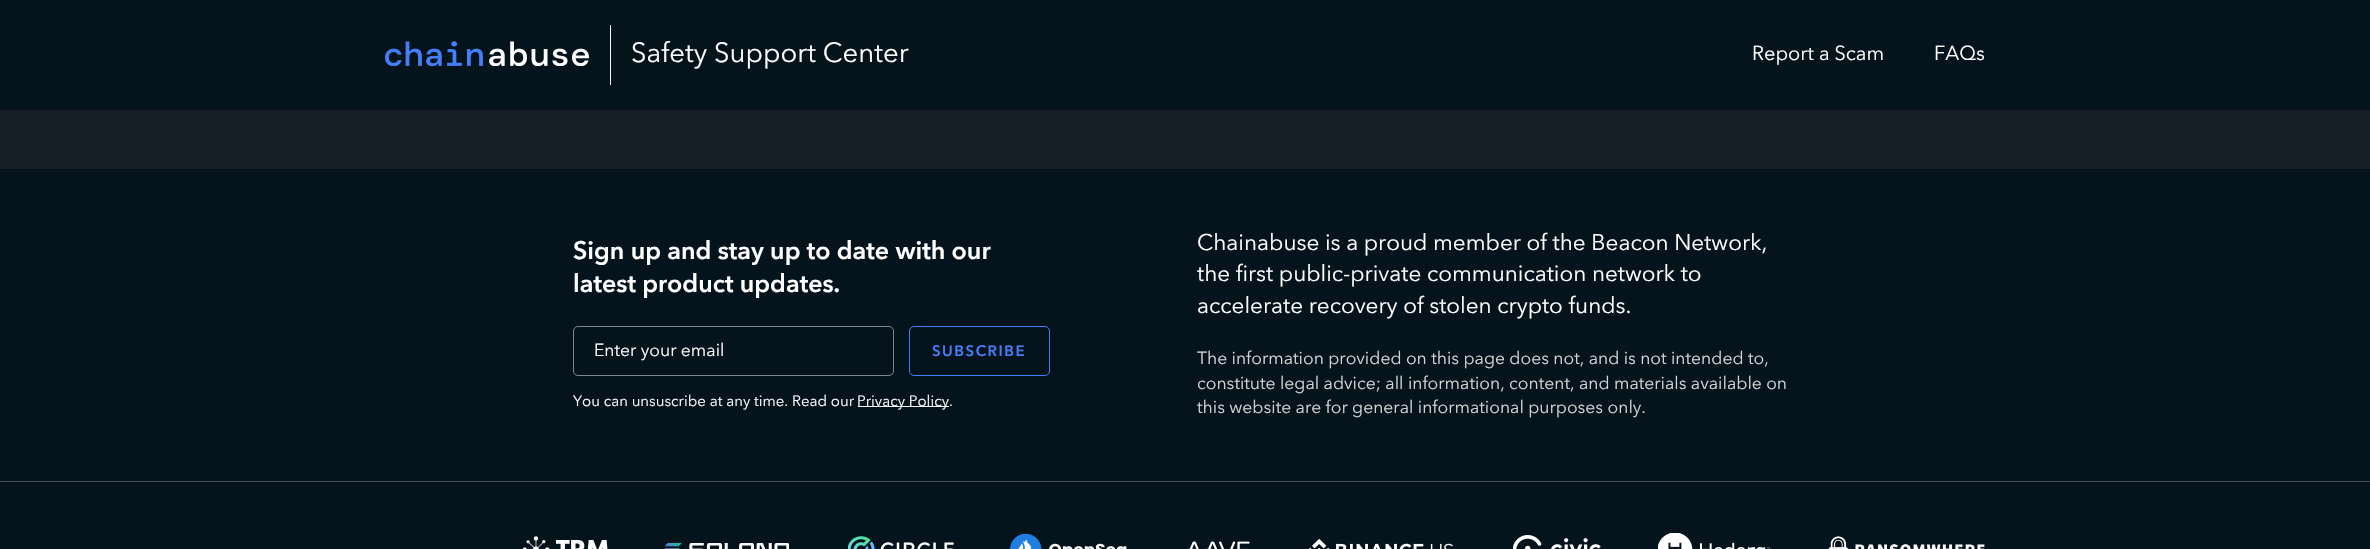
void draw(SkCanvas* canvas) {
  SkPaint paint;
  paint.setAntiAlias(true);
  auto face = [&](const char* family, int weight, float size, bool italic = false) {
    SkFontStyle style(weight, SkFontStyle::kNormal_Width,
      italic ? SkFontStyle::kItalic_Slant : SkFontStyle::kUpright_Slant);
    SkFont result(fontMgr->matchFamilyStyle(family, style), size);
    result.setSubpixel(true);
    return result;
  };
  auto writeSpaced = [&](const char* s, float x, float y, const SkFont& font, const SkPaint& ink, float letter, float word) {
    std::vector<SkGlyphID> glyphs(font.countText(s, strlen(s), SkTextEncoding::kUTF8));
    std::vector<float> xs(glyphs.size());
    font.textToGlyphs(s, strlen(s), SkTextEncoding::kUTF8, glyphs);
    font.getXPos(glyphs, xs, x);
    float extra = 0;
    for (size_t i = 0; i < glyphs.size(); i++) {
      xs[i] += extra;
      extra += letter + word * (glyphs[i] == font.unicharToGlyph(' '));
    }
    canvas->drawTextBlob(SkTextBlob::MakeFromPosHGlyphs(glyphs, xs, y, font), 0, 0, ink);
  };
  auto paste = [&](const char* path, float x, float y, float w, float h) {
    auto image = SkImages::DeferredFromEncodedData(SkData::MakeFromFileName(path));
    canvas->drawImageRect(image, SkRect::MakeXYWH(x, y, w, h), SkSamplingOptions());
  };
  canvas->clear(0xff161e26);
  paint.setColor(0xff05131d);
  canvas->drawRect(SkRect::MakeXYWH(0, 0, 2370, 110), paint);
  paste("img/1.png", 385, 41, 204, 25);
  paint.setColor(0xfff9f9f9);
  canvas->drawRect(SkRect::MakeXYWH(610, 25, 1, 60), paint);
  paint.setColor(0xff05131d);
  canvas->drawRect(SkRect::MakeXYWH(0, 169, 2370, 380), paint);
  paint.setStroke(true);
  paint.setStrokeWidth(1);
  paint.setColor(0xff7f868b);
  canvas->drawRoundRect(SkRect::MakeXYWH(573.5f, 326.5f, 320, 49), 4.5f, 4.5f, paint);
  paint.setColor(0xff447ef8);
  canvas->drawRoundRect(SkRect::MakeXYWH(909.5f, 326.5f, 140, 49), 4.5f, 4.5f, paint);
  paint.setStroke(false);
  paint.setColor(0xfff9f9f9);
  canvas->drawRect(SkRect::MakeXYWH(858, 406, 91, 1), paint);
  paint.setColor(0xff434c54);
  canvas->drawRect(SkRect::MakeXYWH(0, 481, 2370, 1), paint);
  paste("img/2.png", 523, 536, 85, 13);
  paste("img/3.png", 665, 543, 124, 6);
  paste("img/4.png", 848, 536, 106, 13);
  paste("img/5.png", 1010, 534, 117, 15);
  paste("img/6.png", 1187, 541, 63, 8);
  paste("img/7.png", 1309, 539, 144, 10);
  paste("img/8.png", 1513, 535, 88, 14);
  paste("img/9.png", 1658, 533, 112, 16);
  paste("img/10.png", 1828, 536, 157, 13);
  auto f0 = face("Avenir Next", 400, 27.5f);
  paint.setColor(0xffffffff);
  canvas->drawString("Safety Support Center", 631, 62, f0, paint);
  auto f1 = face("Avenir Next", 400, 20);
  canvas->drawString("Report a Scam", 1752, 60, f1, paint);
  canvas->drawString("FAQs", 1934, 60, f1, paint);
  auto f2 = face("Avenir Next", 600, 25);
  canvas->drawString("Sign up and stay up to date with our", 573, 259, f2, paint);
  canvas->drawString("latest product updates.", 573, 292, f2, paint);
  auto f3 = face("Avenir Next", 400, 17.5f);
  paint.setColor(0xfff9f9f9);
  canvas->drawString("Enter your email", 594, 356, f3, paint);
  auto f4 = face("Avenir Next", 600, 15);
  paint.setColor(0xff447ef8);
  writeSpaced("SUBSCRIBE", 932, 356, f4, paint, 1.5f, 0);
  auto f5 = face("Avenir Next", 400, 15);
  paint.setColor(0xfff9f9f9);
  canvas->drawString("You can unsuscribe at any time. Read our", 573, 406, f5, paint);
  canvas->drawString("Privacy Policy.", 857, 406, f5, paint);
  auto f6 = face("Avenir Next", 400, 22.5f);
  paint.setColor(0xffffffff);
  {
    const struct { const char* s; float x, y; } items[] = {
      {"Chainabuse is a proud member of the Beacon Network,", 1197, 250},
      {"the first public-private communication network to", 1197, 281},
      {"accelerate recovery of stolen crypto funds.", 1197, 313},
    };
    for (auto [s, x, y] : items) {
      canvas->drawString(s, x, y, f6, paint);
    }
  }
  paint.setColor(0xffd3d2d4);
  {
    const struct { const char* s; float x, y; } items[] = {
      {"The information provided on this page does not, and is not intended to,", 1197, 364},
      {"constitute legal advice; all information, content, and materials available on", 1197, 389},
      {"this website are for general informational purposes only.", 1197, 413},
    };
    for (auto [s, x, y] : items) {
      canvas->drawString(s, x, y, f3, paint);
    }
  }
}
